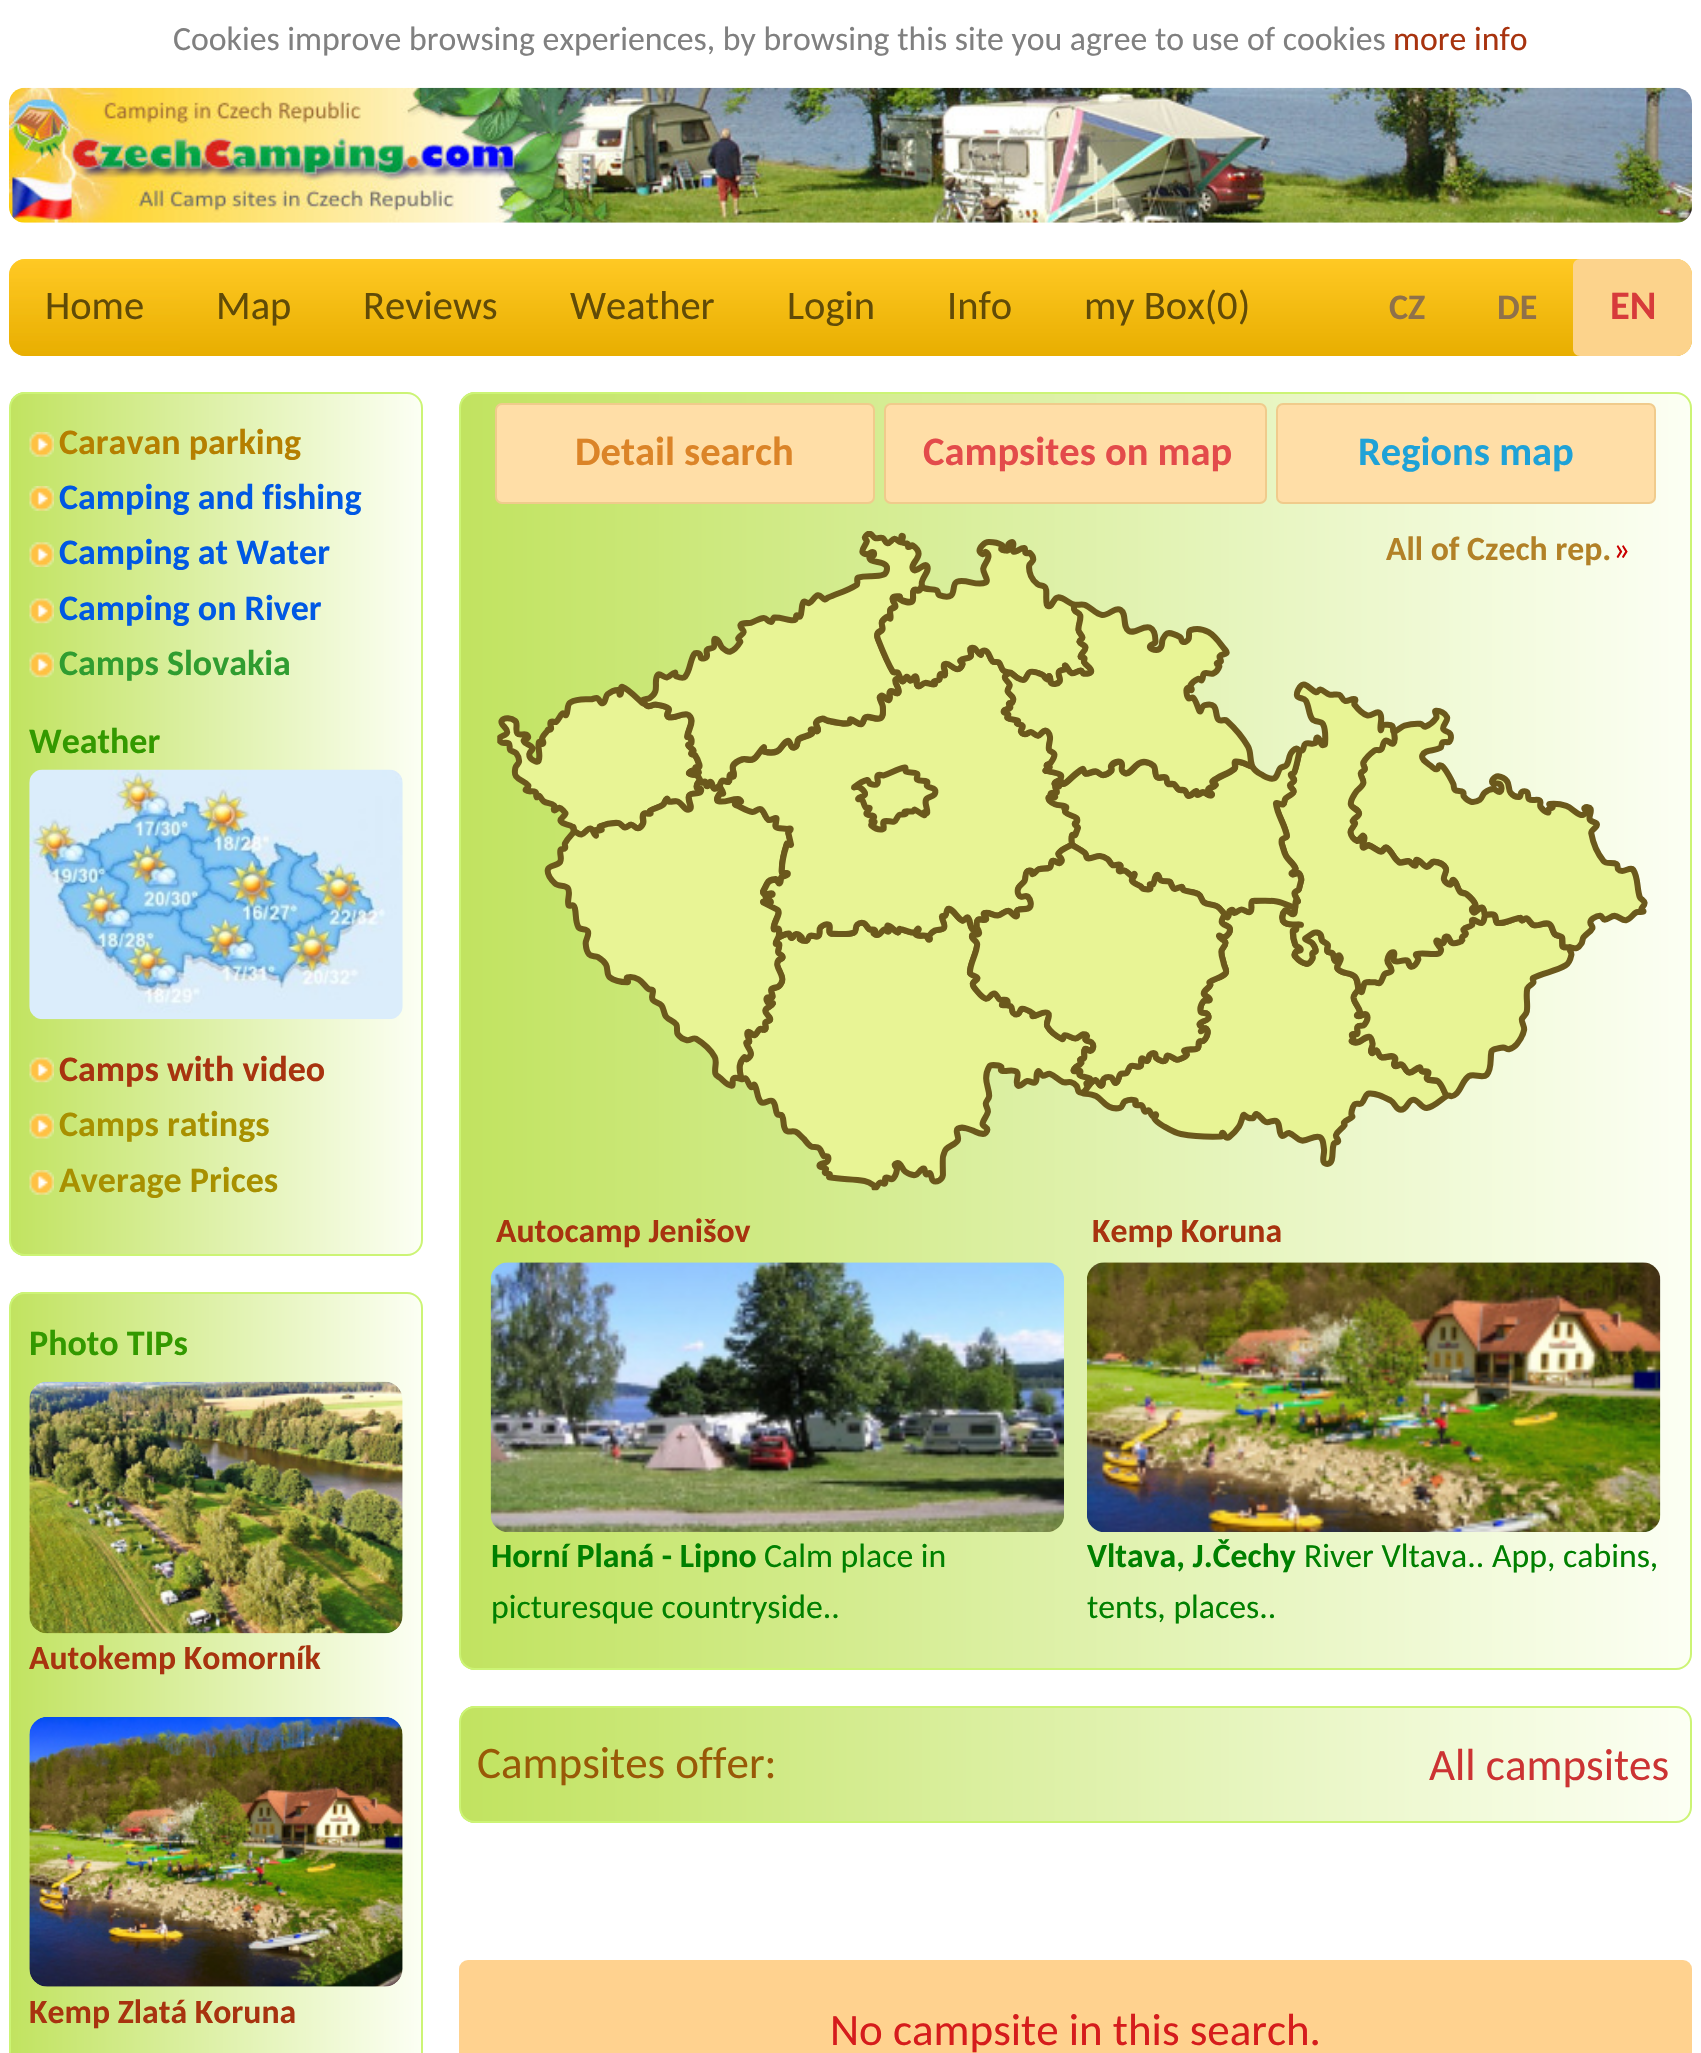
void draw(SkCanvas* canvas) {
  SkPaint paint;
  paint.setAntiAlias(true);
  auto face = [&](const char* family, int weight, float size, bool italic = false) {
    SkFontStyle style(weight, SkFontStyle::kNormal_Width,
      italic ? SkFontStyle::kItalic_Slant : SkFontStyle::kUpright_Slant);
    SkFont result(fontMgr->matchFamilyStyle(family, style), size);
    result.setSubpixel(true);
    return result;
  };
  auto paste = [&](const char* path, float x, float y, float w, float h) {
    auto image = SkImages::DeferredFromEncodedData(SkData::MakeFromFileName(path));
    canvas->drawImageRect(image, SkRect::MakeXYWH(x, y, w, h), SkSamplingOptions());
  };
  auto shape = [&](const char* data, bool evenOdd = false) {
    SkPath result = *SkParsePath::FromSVGString(data);
    if (evenOdd) result.setFillType(SkPathFillType::kEvenOdd);
    return result;
  };
  canvas->clear(0xffffffff);
  paste("img/1.png", 9, 87, 1683, 136);
  {
    const SkColor colors[] = {0xffffc924, 0xffe8ae00};
    const float stops[] = {0, 1};
    const SkPoint ends[] = {{851, 259}, {851, 356}};
    paint.setShader(SkGradientShader::MakeLinear(ends, colors, stops, 2, SkTileMode::kClamp));
    paint.setAlpha(255);
  }
  canvas->drawRoundRect(SkRect::MakeXYWH(9, 259, 1683, 97), 16, 16, paint);
  {
    const SkColor colors[] = {0x99ffc924, 0x99e8ae00};
    const float stops[] = {0, 1};
    const SkPoint ends[] = {{95, 259}, {95, 356}};
    paint.setShader(SkGradientShader::MakeLinear(ends, colors, stops, 2, SkTileMode::kClamp));
    paint.setAlpha(255);
  }
  canvas->drawPath(shape("M25 259H173C177 259 180 262 180 266V349C180 353 177 356 173 356H25C16 356 9 349 9 340V275C9 266 16 259 25 259Z"), paint);
  paint.setShader(nullptr);
  paint.setColor(0xfffcd38c);
  canvas->drawPath(shape("M1580 259H1676C1685 259 1692 266 1692 275V340C1692 349 1685 356 1676 356H1580C1576 356 1573 353 1573 349V266C1573 262 1576 259 1580 259Z"), paint);
  canvas->save();
  canvas->clipPath(shape("M25 392H407C416 392 423 399 423 408V1240C423 1249 416 1256 407 1256H25C16 1256 9 1249 9 1240V408C9 399 16 392 25 392Z"), true);
  {
    const SkColor colors[] = {0xffc1e360, 0xfffcfff4};
    const float stops[] = {0, 1};
    const SkPoint ends[] = {{11, 824}, {421, 824}};
    paint.setShader(SkGradientShader::MakeLinear(ends, colors, stops, 2, SkTileMode::kClamp));
    paint.setAlpha(255);
  }
  canvas->drawRect(SkRect::MakeXYWH(11, 392, 410, 864), paint);
  canvas->restore();
  paint.setStroke(true);
  paint.setStrokeWidth(2);
  paint.setShader(nullptr);
  paint.setColor(0xffccf475);
  canvas->drawRoundRect(SkRect::MakeXYWH(10, 393, 412, 862), 15, 15, paint);
  paste("img/2.png", 29, 432, 25, 25);
  paste("img/2.png", 29, 486, 25, 25);
  paste("img/3.png", 29, 542, 25, 25);
  paste("img/4.png", 29, 598, 25, 26);
  paste("img/4.png", 29, 652, 25, 26);
  paste("img/5.png", 29, 769, 374, 251);
  paste("img/4.png", 29, 1057, 25, 26);
  paste("img/6.png", 29, 1113, 25, 26);
  paste("img/2.png", 29, 1170, 25, 25);
  canvas->save();
  canvas->clipPath(shape("M25 1292H407C416 1292 423 1299 423 1308V2808C423 2817 416 2824 407 2824H25C16 2824 9 2817 9 2808V1308C9 1299 16 1292 25 1292Z"), true);
  paint.setStroke(false);
  {
    const SkColor colors[] = {0xffc1e360, 0xfffcfff4};
    const float stops[] = {0, 1};
    const SkPoint ends[] = {{11, 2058}, {421, 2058}};
    paint.setShader(SkGradientShader::MakeLinear(ends, colors, stops, 2, SkTileMode::kClamp));
    paint.setAlpha(255);
  }
  canvas->drawRect(SkRect::MakeXYWH(11, 1292, 410, 761), paint);
  canvas->restore();
  paint.setStroke(true);
  paint.setShader(nullptr);
  paint.setColor(0xffccf475);
  canvas->drawRoundRect(SkRect::MakeXYWH(10, 1293, 412, 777), 15, 15, paint);
  paste("img/7.png", 29, 1381, 374, 253);
  paste("img/8.png", 29, 1717, 374, 270);
  canvas->save();
  canvas->clipPath(shape("M475 392H1676C1685 392 1692 399 1692 408V1654C1692 1663 1685 1670 1676 1670H475C466 1670 459 1663 459 1654V408C459 399 466 392 475 392Z"), true);
  paint.setStroke(false);
  {
    const SkColor colors[] = {0xffc1e360, 0xfffcfff4};
    const float stops[] = {0, 1};
    const SkPoint ends[] = {{461, 1031}, {1690, 1031}};
    paint.setShader(SkGradientShader::MakeLinear(ends, colors, stops, 2, SkTileMode::kClamp));
    paint.setAlpha(255);
  }
  canvas->drawRect(SkRect::MakeXYWH(461, 392, 1229, 1278), paint);
  canvas->restore();
  paint.setStroke(true);
  paint.setShader(nullptr);
  paint.setColor(0xffccf475);
  canvas->drawRoundRect(SkRect::MakeXYWH(460, 393, 1231, 1276), 15, 15, paint);
  paint.setStroke(false);
  paint.setColor(0xffffdea7);
  canvas->drawRoundRect(SkRect::MakeXYWH(496, 404, 378, 99), 6, 6, paint);
  paint.setStroke(true);
  paint.setColor(0xfff0cb8c);
  canvas->drawRoundRect(SkRect::MakeXYWH(496, 404, 378, 99), 6, 6, paint);
  paint.setStroke(false);
  paint.setColor(0xffffdea7);
  canvas->drawRoundRect(SkRect::MakeXYWH(885, 404, 381, 99), 6, 6, paint);
  paint.setStroke(true);
  paint.setColor(0xfff0cb8c);
  canvas->drawRoundRect(SkRect::MakeXYWH(885, 404, 381, 99), 6, 6, paint);
  paint.setStroke(false);
  paint.setColor(0xffffdea7);
  canvas->drawRoundRect(SkRect::MakeXYWH(1277, 404, 378, 99), 6, 6, paint);
  paint.setStroke(true);
  paint.setColor(0xfff0cb8c);
  canvas->drawRoundRect(SkRect::MakeXYWH(1277, 404, 378, 99), 6, 6, paint);
  paste("img/9.png", 497, 531, 1151, 660);
  paste("img/10.png", 490, 1262, 574, 270);
  paste("img/11.png", 1087, 1262, 574, 270);
  canvas->save();
  canvas->clipPath(shape("M475 1706H1676C1685 1706 1692 1713 1692 1722V1807C1692 1816 1685 1823 1676 1823H475C466 1823 459 1816 459 1807V1722C459 1713 466 1706 475 1706Z"), true);
  paint.setStroke(false);
  {
    const SkColor colors[] = {0xffc1e360, 0xfffcfff4};
    const float stops[] = {0, 1};
    const SkPoint ends[] = {{461, 1764}, {1690, 1764}};
    paint.setShader(SkGradientShader::MakeLinear(ends, colors, stops, 2, SkTileMode::kClamp));
    paint.setAlpha(255);
  }
  canvas->drawRect(SkRect::MakeXYWH(461, 1706, 1229, 117), paint);
  canvas->restore();
  paint.setStroke(true);
  paint.setShader(nullptr);
  paint.setColor(0xffccf475);
  canvas->drawRoundRect(SkRect::MakeXYWH(460, 1707, 1231, 115), 15, 15, paint);
  paint.setStroke(false);
  paint.setColor(0xffffd28f);
  canvas->drawRoundRect(SkRect::MakeXYWH(459, 1960, 1233, 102), 9, 9, paint);
  auto f0 = face("Carlito", 400, 33.75f);
  paint.setColor(0xff808080);
  canvas->drawString("Cookies improve browsing experiences, by browsing this site you agree to use of cookies", 173, 50, f0, paint);
  paint.setColor(0xffa8330f);
  canvas->drawString("more info", 1393, 50, f0, paint);
  auto f1 = face("Carlito", 400, 40.5f);
  paint.setColor(0xff614b07);
  {
    const struct { const char* s; float x, y; } items[] = {
      {"Home", 45, 319},
      {"Map", 216, 319},
      {"Reviews", 363, 319},
      {"Weather", 570, 319},
      {"Login", 787, 319},
      {"Info", 947, 319},
      {"my Box(", 1084, 319},
      {"0", 1217, 319},
      {")", 1238, 319},
    };
    for (auto [s, x, y] : items) {
      canvas->drawString(s, x, y, f1, paint);
    }
  }
  auto f2 = face("Carlito", 700, 36);
  paint.setColor(0xff8f714a);
  canvas->drawString("CZ", 1389, 319, f2, paint);
  canvas->drawString("DE", 1497, 319, f2, paint);
  auto f3 = face("Carlito", 700, 40.5f);
  paint.setColor(0xffd73b3b);
  canvas->drawString("EN", 1610, 319, f3, paint);
  paint.setColor(0xffb57f00);
  canvas->drawString("Caravan parking", 59, 454, f2, paint);
  paint.setColor(0xff0058e4);
  {
    const struct { const char* s; float x, y; } items[] = {
      {"Camping and fishing", 59, 509},
      {"Camping at Water", 59, 564},
      {"Camping on River", 59, 620},
    };
    for (auto [s, x, y] : items) {
      canvas->drawString(s, x, y, f2, paint);
    }
  }
  paint.setColor(0xff309d30);
  canvas->drawString("Camps Slovakia", 59, 675, f2, paint);
  paint.setColor(0xff339900);
  canvas->drawString("Weather", 29, 753, f2, paint);
  paint.setColor(0xffa8330f);
  canvas->drawString("Camps with video", 59, 1081, f2, paint);
  paint.setColor(0xffa89000);
  canvas->drawString("Camps ratings", 59, 1136, f2, paint);
  canvas->drawString("Average Prices", 59, 1192, f2, paint);
  paint.setColor(0xff339900);
  canvas->drawString("Photo TIPs", 29, 1355, f2, paint);
  auto f4 = face("Carlito", 700, 33.75f);
  paint.setColor(0xffa8330f);
  canvas->drawString("Autokemp Komorník", 29, 1669, f4, paint);
  canvas->drawString("Kemp Zlatá Koruna", 29, 2023, f4, paint);
  paint.setColor(0xffdb8428);
  canvas->drawString("Detail search", 575, 465, f3, paint);
  paint.setColor(0xffe34b4b);
  canvas->drawString("Campsites on map", 923, 465, f3, paint);
  paint.setColor(0xff1fa2d7);
  canvas->drawString("Regions map", 1358, 465, f3, paint);
  paint.setColor(0xffb28127);
  canvas->drawString("All of Czech rep.", 1386, 560, f4, paint);
  paint.setColor(0xffca0000);
  canvas->drawString("»", 1613, 560, f0, paint);
  paint.setColor(0xffa8330f);
  canvas->drawString("Autocamp Jenišov", 496, 1242, f4, paint);
  paint.setColor(0xff008000);
  canvas->drawString("Horní Planá - Lipno", 491, 1567, f4, paint);
  canvas->drawString("Calm place in", 764, 1567, f0, paint);
  canvas->drawString("picturesque countryside..", 491, 1618, f0, paint);
  paint.setColor(0xffa8330f);
  canvas->drawString("Kemp Koruna", 1092, 1242, f4, paint);
  paint.setColor(0xff008000);
  canvas->drawString("Vltava, J.Čechy", 1087, 1567, f4, paint);
  canvas->drawString("River Vltava.. App, cabins,", 1304, 1567, f0, paint);
  canvas->drawString("tents, places..", 1087, 1618, f0, paint);
  auto f5 = face("Carlito", 400, 45);
  paint.setColor(0xff995907);
  canvas->drawString("Campsites offer:", 477, 1778, f5, paint);
  paint.setColor(0xffcc3333);
  canvas->drawString("All campsites", 1429, 1780, f5, paint);
  paint.setColor(0xffd51c1c);
  canvas->drawString("No campsite in this search.", 830, 2045, f5, paint);
}
